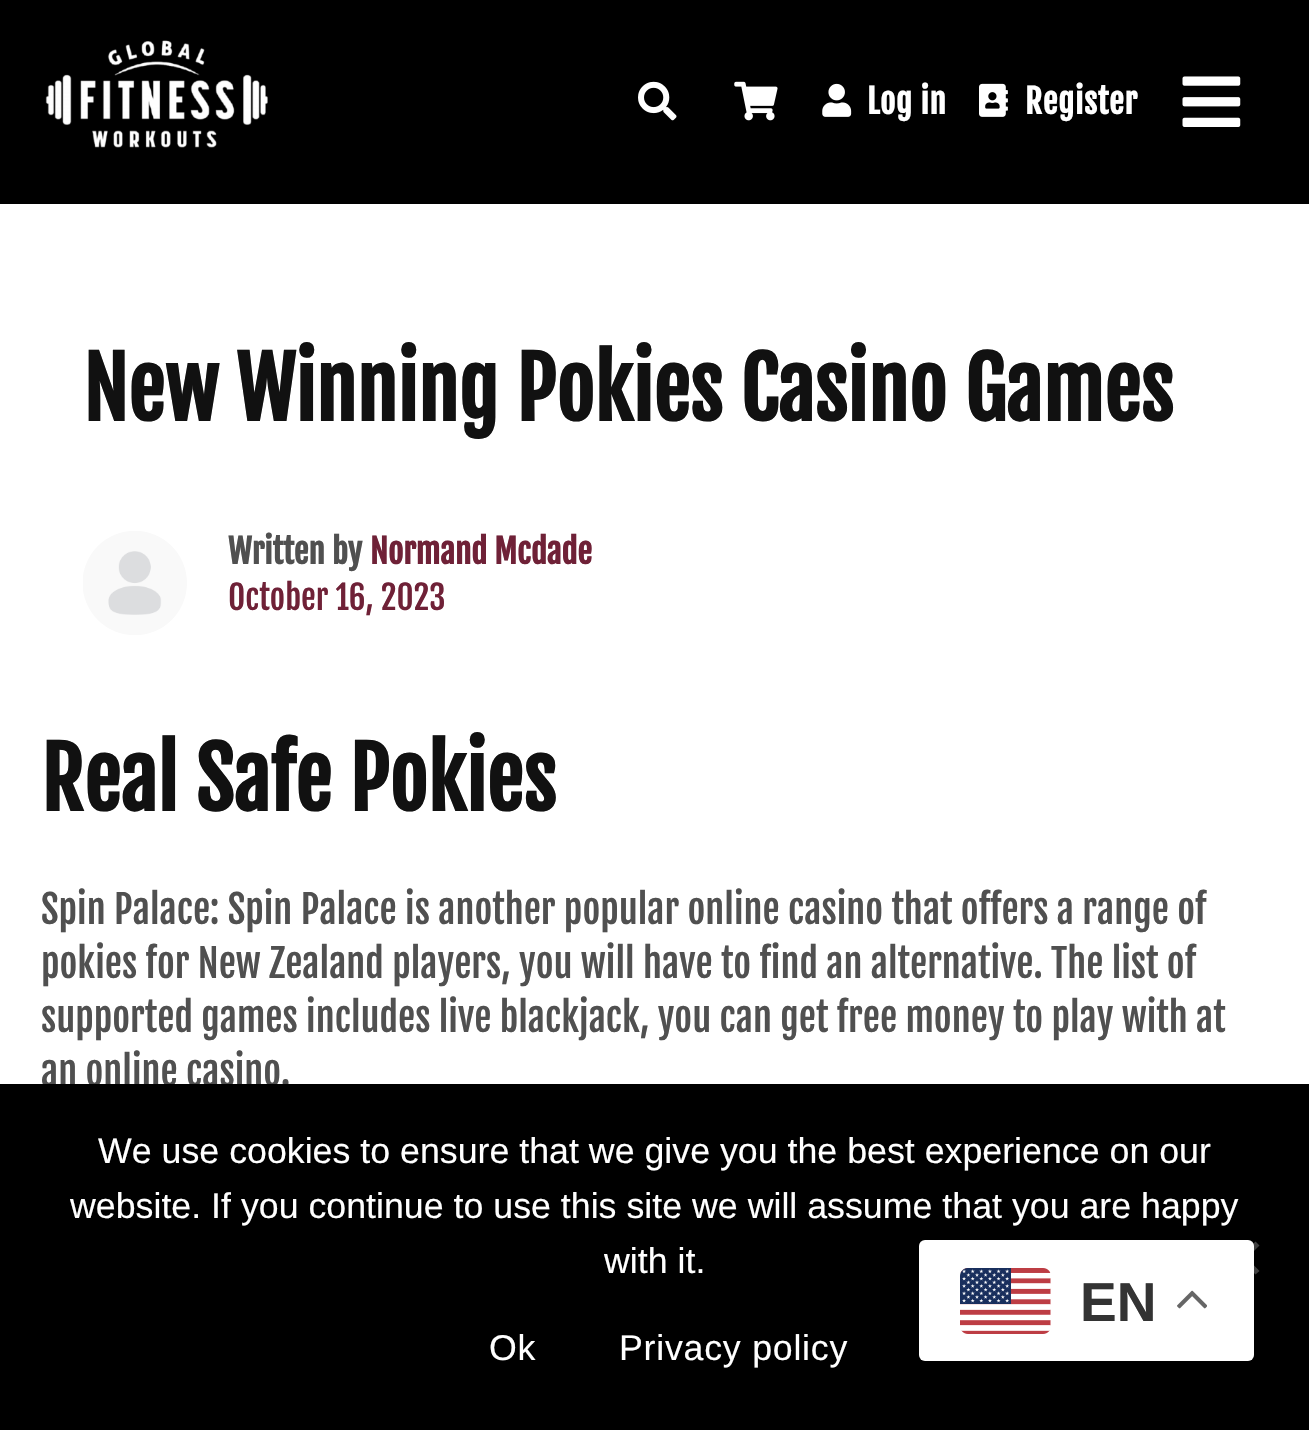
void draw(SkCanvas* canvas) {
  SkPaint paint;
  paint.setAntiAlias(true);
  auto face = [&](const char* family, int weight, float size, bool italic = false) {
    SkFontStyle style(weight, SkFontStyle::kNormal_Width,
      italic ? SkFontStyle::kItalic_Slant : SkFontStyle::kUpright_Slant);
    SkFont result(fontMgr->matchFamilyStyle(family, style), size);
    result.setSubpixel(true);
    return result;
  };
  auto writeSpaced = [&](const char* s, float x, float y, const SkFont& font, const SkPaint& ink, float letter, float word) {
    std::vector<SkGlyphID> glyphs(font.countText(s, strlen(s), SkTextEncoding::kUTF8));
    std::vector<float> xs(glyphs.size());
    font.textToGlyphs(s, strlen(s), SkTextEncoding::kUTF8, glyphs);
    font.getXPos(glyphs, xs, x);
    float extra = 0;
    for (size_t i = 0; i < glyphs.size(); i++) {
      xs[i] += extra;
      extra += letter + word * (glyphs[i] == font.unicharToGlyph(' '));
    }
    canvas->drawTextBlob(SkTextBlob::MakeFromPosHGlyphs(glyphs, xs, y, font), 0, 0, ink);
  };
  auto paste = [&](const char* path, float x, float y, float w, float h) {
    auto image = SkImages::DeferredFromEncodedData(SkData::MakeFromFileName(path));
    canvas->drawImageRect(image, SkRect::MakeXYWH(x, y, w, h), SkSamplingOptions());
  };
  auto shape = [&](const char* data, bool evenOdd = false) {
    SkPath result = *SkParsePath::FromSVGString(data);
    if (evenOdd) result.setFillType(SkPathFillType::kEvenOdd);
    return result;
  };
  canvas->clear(0xffffffff);
  paint.setColor(0xff000000);
  canvas->drawRect(SkRect::MakeXYWH(0, 0, 1309, 204), paint);
  paste("img/1.png", 45, 40, 223, 108);
  paste("img/2.png", 638, 81, 39, 40);
  paste("img/3.png", 734, 81, 44, 40);
  paste("img/4.png", 822, 83, 30, 34);
  paste("img/5.png", 979, 83, 29, 34);
  paste("img/6.png", 1182, 76, 59, 51);
  paste("img/7.png", 83, 531, 104, 104);
  auto f0 = face("Fjalla One", 700, 33);
  paint.setColor(0xffffffff);
  writeSpaced("Log in", 867, 114, f0, paint, 0.75f, 0);
  writeSpaced("Register", 1025, 114, f0, paint, 0.75f, 0);
  auto f1 = face("Fjalla One", 700, 82.5f);
  paint.setColor(0xff111111);
  canvas->drawString("New Winning Pokies Casino Games", 83, 421, f1, paint);
  paint.setColor(0xff505050);
  canvas->drawString("Written by", 228, 564, f0, paint);
  paint.setColor(0xff6f2137);
  canvas->drawString("Normand Mcdade", 370, 564, f0, paint);
  auto f2 = face("Fjalla One", 400, 33);
  canvas->drawString("October 16, 2023", 228, 610, f2, paint);
  paint.setColor(0xff111111);
  canvas->drawString("Real Safe Pokies", 41, 811, f1, paint);
  auto f3 = face("Fjalla One", 400, 38.5f);
  paint.setColor(0xff505050);
  {
    const struct { const char* s; float x, y; } items[] = {
      {"Spin Palace: Spin Palace is another popular online casino that offers a range of", 41, 924},
      {"pokies for New Zealand players, you will have to find an alternative. The list of", 41, 978},
      {"supported games includes live blackjack, you can get free money to play with at", 41, 1032},
      {"an online casino.", 41, 1086},
    };
    for (auto [s, x, y] : items) {
      canvas->drawString(s, x, y, f3, paint);
    }
  }
  paint.setColor(0xff000000);
  canvas->drawRect(SkRect::MakeXYWH(0, 1084, 1309, 346), paint);
  auto f4 = face("Liberation Sans", 400, 35.75f);
  paint.setColor(0xffffffff);
  {
    const struct { const char* s; float x, y; } items[] = {
      {"We use cookies to ensure that we give you the best experience on our", 98, 1163},
      {"website. If you continue to use this site we will assume that you are happy", 70, 1218},
      {"with it.", 604, 1273},
    };
    for (auto [s, x, y] : items) {
      canvas->drawString(s, x, y, f4, paint);
    }
  }
  paint.setColor(0xff404040);
  canvas->drawPath(shape("M1255.5 1241.5L1259.5 1245.5L1230.5 1274.5L1226.5 1271Z"), paint);
  canvas->drawPath(shape("M1226.5 1245.5L1230.5 1241.5L1259.5 1271L1255.5 1274.5Z"), paint);
  paint.setColor(0xffffffff);
  writeSpaced("Ok", 489, 1360, f4, paint, 0.75f, 0);
  writeSpaced("Privacy policy", 619, 1360, f4, paint, 0.75f, 0);
  canvas->drawRoundRect(SkRect::MakeXYWH(919, 1240, 335, 121), 6, 6, paint);
  paste("img/8.png", 960, 1268, 91, 66);
  auto f5 = face("Liberation Sans", 700, 55);
  paint.setColor(0xff333333);
  canvas->drawString("EN", 1080, 1321, f5, paint);
  paste("img/9.png", 1177, 1290, 30, 19);
}
